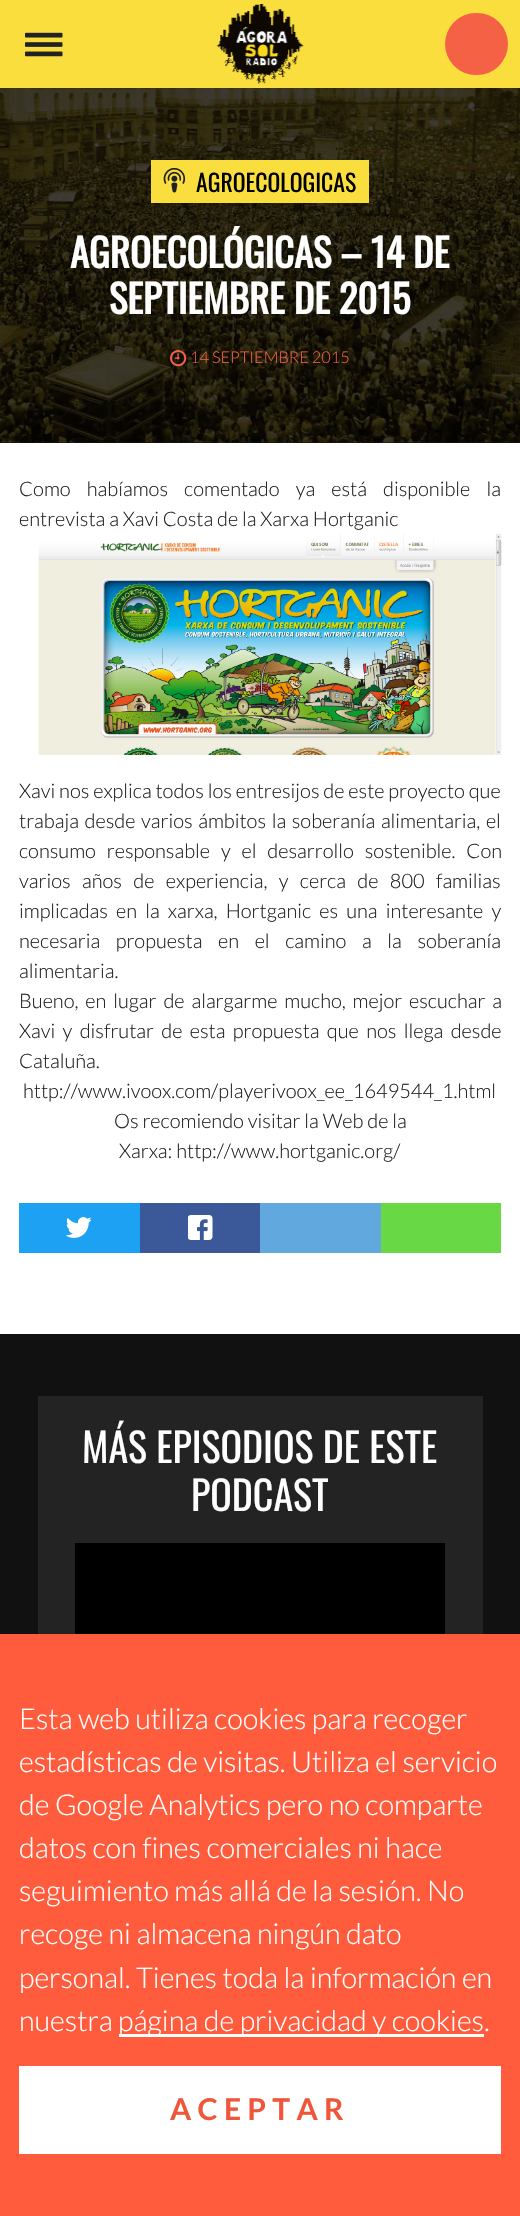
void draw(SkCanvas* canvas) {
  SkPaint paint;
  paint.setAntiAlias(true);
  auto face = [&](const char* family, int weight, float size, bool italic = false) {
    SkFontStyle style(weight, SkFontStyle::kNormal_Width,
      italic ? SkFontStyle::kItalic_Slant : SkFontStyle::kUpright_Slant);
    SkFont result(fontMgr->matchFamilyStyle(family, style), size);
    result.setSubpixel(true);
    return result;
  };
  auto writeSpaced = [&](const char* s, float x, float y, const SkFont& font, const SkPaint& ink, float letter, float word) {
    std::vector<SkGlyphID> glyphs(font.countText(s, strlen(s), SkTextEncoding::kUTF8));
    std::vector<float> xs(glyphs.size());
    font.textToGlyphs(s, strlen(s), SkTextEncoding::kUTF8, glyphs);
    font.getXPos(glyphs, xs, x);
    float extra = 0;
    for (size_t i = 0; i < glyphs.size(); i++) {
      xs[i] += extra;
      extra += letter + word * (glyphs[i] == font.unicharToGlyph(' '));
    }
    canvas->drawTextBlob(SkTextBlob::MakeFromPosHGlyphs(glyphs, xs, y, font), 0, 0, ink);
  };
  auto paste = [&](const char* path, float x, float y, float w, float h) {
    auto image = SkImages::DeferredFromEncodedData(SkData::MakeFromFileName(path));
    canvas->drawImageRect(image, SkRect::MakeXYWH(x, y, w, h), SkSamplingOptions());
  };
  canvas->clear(0xffffffff);
  paint.setColor(0xfffade3e);
  canvas->drawRect(SkRect::MakeXYWH(0, 0, 520, 88), paint);
  paste("img/1.png", 25, 32, 38, 25);
  paste("img/2.png", 216, 4, 88, 80);
  paint.setColor(0xfff46144);
  canvas->drawRoundRect(SkRect::MakeXYWH(445, 13, 63, 62), 31, 31, paint);
  paint.setColor(0xff141414);
  canvas->drawRect(SkRect::MakeXYWH(0, 442, 520, 1), paint);
  paste("img/3.png", 0, 88, 520, 355);
  paint.setColor(0xfffade3e);
  canvas->drawRect(SkRect::MakeXYWH(151, 160, 218, 43), paint);
  paste("img/4.png", 163, 167, 23, 26);
  paste("img/5.png", 170, 350, 17, 17);
  paste("img/6.png", 38, 533, 464, 222);
  paint.setColor(0xff1da1f2);
  canvas->drawRect(SkRect::MakeXYWH(19, 1203, 121, 50), paint);
  paste("img/7.png", 66, 1217, 25, 21);
  paint.setColor(0xff3b5998);
  canvas->drawRect(SkRect::MakeXYWH(140, 1203, 120, 50), paint);
  paste("img/8.png", 188, 1215, 25, 25);
  {
    const struct { float x, y, w, h; SkColor color; } items[] = {
      {260, 1203, 121, 50, 0xff60a8de},
      {381, 1203, 120, 50, 0xff68d844},
      {0, 1334, 520, 300, 0xff111111},
      {38, 1396, 445, 238, 0xff232323},
      {75, 1543, 370, 91, 0xff000000},
      {0, 1634, 520, 582, 0xffff5c3d},
      {119, 2034, 365, 3, 0xffffffff},
      {19, 2066, 482, 88, 0xffffffff},
    };
    for (auto [x, y, w, h, color] : items) {
      paint.setColor(color);
      canvas->drawRect(SkRect::MakeXYWH(x, y, w, h), paint);
    }
  }
  auto f0 = face("Oswald", 400, 23.75f);
  paint.setColor(0xff000000);
  canvas->drawString("AGROECOLOGICAS", 196, 192, f0, paint);
  auto f1 = face("Oswald", 700, 38.75f);
  paint.setColor(0xffffffff);
  canvas->drawString("AGROECOLÓGICAS – 14 DE", 70, 268, f1, paint);
  canvas->drawString("SEPTIEMBRE DE 2015", 109, 314, f1, paint);
  auto f2 = face("Lato", 300, 16.25f);
  paint.setColor(0xfff46144);
  canvas->drawString("14 SEPTIEMBRE 2015", 190, 363, f2, paint);
  auto f3 = face("Lato", 300, 20);
  paint.setColor(0xff222222);
  writeSpaced("Como habíamos comentado ya está disponible la", 19, 496, f3, paint, 0, 12.25f);
  canvas->drawString("entrevista a Xavi Costa de la Xarxa Hortganic", 19, 526, f3, paint);
  canvas->drawString("Xavi nos explica todos los entresijos de este proyecto que", 19, 798, f3, paint);
  writeSpaced("trabaja desde varios ámbitos la soberanía alimentaria, el", 19, 828, f3, paint, 0, 1.75f);
  writeSpaced("consumo responsable y el desarrollo sostenible. Con", 19, 858, f3, paint, 0, 7);
  writeSpaced("varios años de experiencia, y cerca de 800 familias", 19, 888, f3, paint, 0, 7.5f);
  writeSpaced("implicadas en la xarxa, Hortganic es una interesante y", 19, 918, f3, paint, 0, 4.25f);
  writeSpaced("necesaria propuesta en el camino a la soberanía", 19, 948, f3, paint, 0, 11.75f);
  canvas->drawString("alimentaria.", 19, 978, f3, paint);
  writeSpaced("Bueno, en lugar de alargarme mucho, mejor escuchar a", 19, 1008, f3, paint, 0, 3);
  writeSpaced("Xavi y disfrutar de esta propuesta que nos llega desde", 19, 1038, f3, paint, 0, 3.5f);
  {
    const struct { const char* s; float x, y; } items[] = {
      {"Cataluña.", 19, 1068},
      {"http://www.ivoox.com/playerivoox_ee_1649544_1.html", 23, 1098},
      {"Os recomiendo visitar la Web de la", 114, 1128},
      {"Xarxa: http://www.hortganic.org/", 119, 1158},
    };
    for (auto [s, x, y] : items) {
      canvas->drawString(s, x, y, f3, paint);
    }
  }
  auto f4 = face("Oswald", 400, 40);
  paint.setColor(0xffffffff);
  canvas->drawString("MÁS EPISODIOS DE ESTE", 82, 1463, f4, paint);
  canvas->drawString("PODCAST", 191, 1511, f4, paint);
  auto f5 = face("Lato", 300, 28.75f);
  {
    const struct { const char* s; float x, y; } items[] = {
      {"Esta web utiliza cookies para recoger", 19, 1729},
      {"estadísticas de visitas. Utiliza el servicio", 19, 1772},
      {"de Google Analytics pero no comparte", 19, 1815},
      {"datos con fines comerciales ni hace", 19, 1858},
      {"seguimiento más allá de la sesión. No", 19, 1901},
      {"recoge ni almacena ningún dato", 19, 1944},
      {"personal. Tienes toda la información en", 19, 1988},
      {"nuestra", 19, 2031},
      {"página de privacidad y cookies.", 118, 2031},
    };
    for (auto [s, x, y] : items) {
      canvas->drawString(s, x, y, f5, paint);
    }
  }
  auto f6 = face("Lato", 700, 30);
  paint.setColor(0xffee573a);
  writeSpaced("ACEPTAR", 170, 2120, f6, paint, 6.25f, 0);
}
